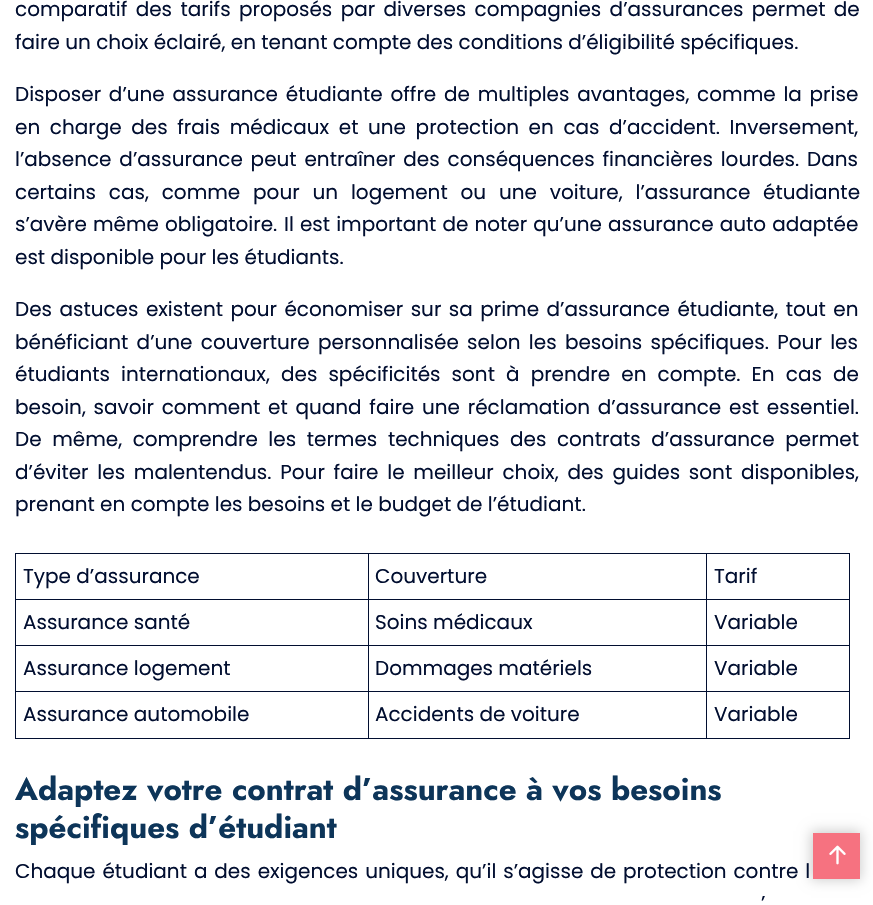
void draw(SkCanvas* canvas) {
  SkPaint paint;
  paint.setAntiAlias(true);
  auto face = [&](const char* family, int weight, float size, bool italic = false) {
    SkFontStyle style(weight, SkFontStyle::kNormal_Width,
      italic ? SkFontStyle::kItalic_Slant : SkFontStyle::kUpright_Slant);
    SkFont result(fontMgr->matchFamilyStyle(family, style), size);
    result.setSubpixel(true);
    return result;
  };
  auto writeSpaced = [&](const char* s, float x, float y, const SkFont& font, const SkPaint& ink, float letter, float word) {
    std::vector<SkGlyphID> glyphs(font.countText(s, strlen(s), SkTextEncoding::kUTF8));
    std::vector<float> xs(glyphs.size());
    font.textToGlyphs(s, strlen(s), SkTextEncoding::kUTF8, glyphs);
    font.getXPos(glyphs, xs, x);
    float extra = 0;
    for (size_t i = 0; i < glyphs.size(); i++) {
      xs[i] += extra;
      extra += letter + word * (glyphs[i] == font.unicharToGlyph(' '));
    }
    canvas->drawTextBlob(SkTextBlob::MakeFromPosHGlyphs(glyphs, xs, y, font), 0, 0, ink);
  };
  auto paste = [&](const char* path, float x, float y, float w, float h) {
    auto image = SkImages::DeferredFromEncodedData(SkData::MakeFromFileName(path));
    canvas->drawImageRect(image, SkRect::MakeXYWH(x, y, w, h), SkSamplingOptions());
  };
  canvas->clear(0xffffffff);
  {
    const struct { float x, y, w, h; SkColor color; } items[] = {
      {15, 553, 835, 1, 0xff010e30},
      {15, 599, 835, 1, 0xff010e30},
      {15, 645, 835, 1, 0xff010e30},
      {15, 691, 835, 1, 0xff010e30},
      {849, 691, 1, 48, 0xff010e30},
      {849, 645, 1, 48, 0xff010e30},
      {849, 599, 1, 47, 0xff010e30},
      {849, 553, 1, 47, 0xff010e30},
      {15, 738, 835, 1, 0xff010e30},
      {15, 691, 1, 48, 0xff010e30},
      {15, 645, 1, 48, 0xff010e30},
      {15, 599, 1, 47, 0xff010e30},
      {15, 553, 1, 47, 0xff010e30},
      {368, 553, 1, 186, 0xff010e30},
      {706, 553, 1, 186, 0xff010e30},
    };
    for (auto [x, y, w, h, color] : items) {
      paint.setColor(color);
      canvas->drawRect(SkRect::MakeXYWH(x, y, w, h), paint);
    }
  }
  paint.setColor(0x33000000);
  paint.setMaskFilter(SkMaskFilter::MakeBlur(kNormal_SkBlurStyle, 6));
  canvas->drawRect(SkRect::MakeXYWH(811, 831, 50, 49), paint);
  paint.setMaskFilter(nullptr);
  paint.setColor(0xfff67280);
  canvas->drawRect(SkRect::MakeXYWH(813, 833, 47, 46), paint);
  paste("img/1.png", 829, 845, 17, 20);
  auto f0 = face("Poppins", 400, 20);
  paint.setColor(0xff010e30);
  writeSpaced("comparatif des tarifs proposés par diverses compagnies d’assurances permet de", 15, 16, f0, paint, 0, 3);
  canvas->drawString("faire un choix éclairé, en tenant compte des conditions d’éligibilité spécifiques.", 15, 49, f0, paint);
  writeSpaced("Disposer d’une assurance étudiante offre de multiples avantages, comme la prise", 15, 101, f0, paint, 0, 2.4f);
  writeSpaced("en charge des frais médicaux et une protection en cas d’accident. Inversement,", 15, 134, f0, paint, 0, 4.25f);
  writeSpaced("l’absence d’assurance peut entraîner des conséquences financières lourdes. Dans", 15, 166, f0, paint, 0, 2.5f);
  writeSpaced("certains cas, comme pour un logement ou une voiture, l’assurance étudiante", 15, 199, f0, paint, 0, 7.5f);
  writeSpaced("s’avère même obligatoire.", 15, 231, f0, paint, 0, 0.75f);
  writeSpaced("Il est important de noter qu’une assurance auto adaptée", 284, 231, f0, paint, 0, 0.75f);
  canvas->drawString("est disponible pour les étudiants.", 15, 264, f0, paint);
  writeSpaced("Des astuces existent pour économiser sur sa prime d’assurance étudiante, tout en", 15, 316, f0, paint, 0, 2.1f);
  writeSpaced("bénéficiant d’une couverture personnalisée selon les besoins spécifiques. Pour les", 15, 349, f0, paint, 0, 3);
  writeSpaced("étudiants internationaux, des spécificités sont à prendre en compte. En cas de", 15, 381, f0, paint, 0, 5.75f);
  writeSpaced("besoin, savoir comment et quand faire une réclamation d’assurance est essentiel.", 15, 414, f0, paint, 0, 2.4f);
  writeSpaced("De même, comprendre les termes techniques des contrats d’assurance permet", 15, 446, f0, paint, 0, 5.25f);
  writeSpaced("d’éviter les malentendus. Pour faire le meilleur choix, des guides sont disponibles,", 15, 479, f0, paint, 0, 3.4f);
  {
    const struct { const char* s; float x, y; } items[] = {
      {"prenant en compte les besoins et le budget de l’étudiant.", 15, 511},
      {"Type d’assurance", 23, 583},
      {"Couverture", 375, 583},
      {"Tarif", 714, 583},
      {"Assurance santé", 23, 629},
      {"Soins médicaux", 375, 629},
      {"Variable", 714, 629},
      {"Assurance logement", 23, 675},
      {"Dommages matériels", 375, 675},
      {"Variable", 714, 675},
      {"Assurance automobile", 23, 721},
      {"Accidents de voiture", 375, 721},
      {"Variable", 714, 721},
    };
    for (auto [s, x, y] : items) {
      canvas->drawString(s, x, y, f0, paint);
    }
  }
  auto f1 = face("Jost", 700, 31.25f);
  paint.setColor(0xff0d3559);
  canvas->drawString("Adaptez votre contrat d’assurance à vos besoins", 15, 800, f1, paint);
  canvas->drawString("spécifiques d’étudiant", 15, 838, f1, paint);
  paint.setColor(0xff010e30);
  writeSpaced("Chaque étudiant a des exigences uniques, qu’il s’agisse de protection contre l", 15, 878, f0, paint, 0, 1.6f);
  writeSpaced("’", 761, 910, f0, paint, 0, 8);
}
